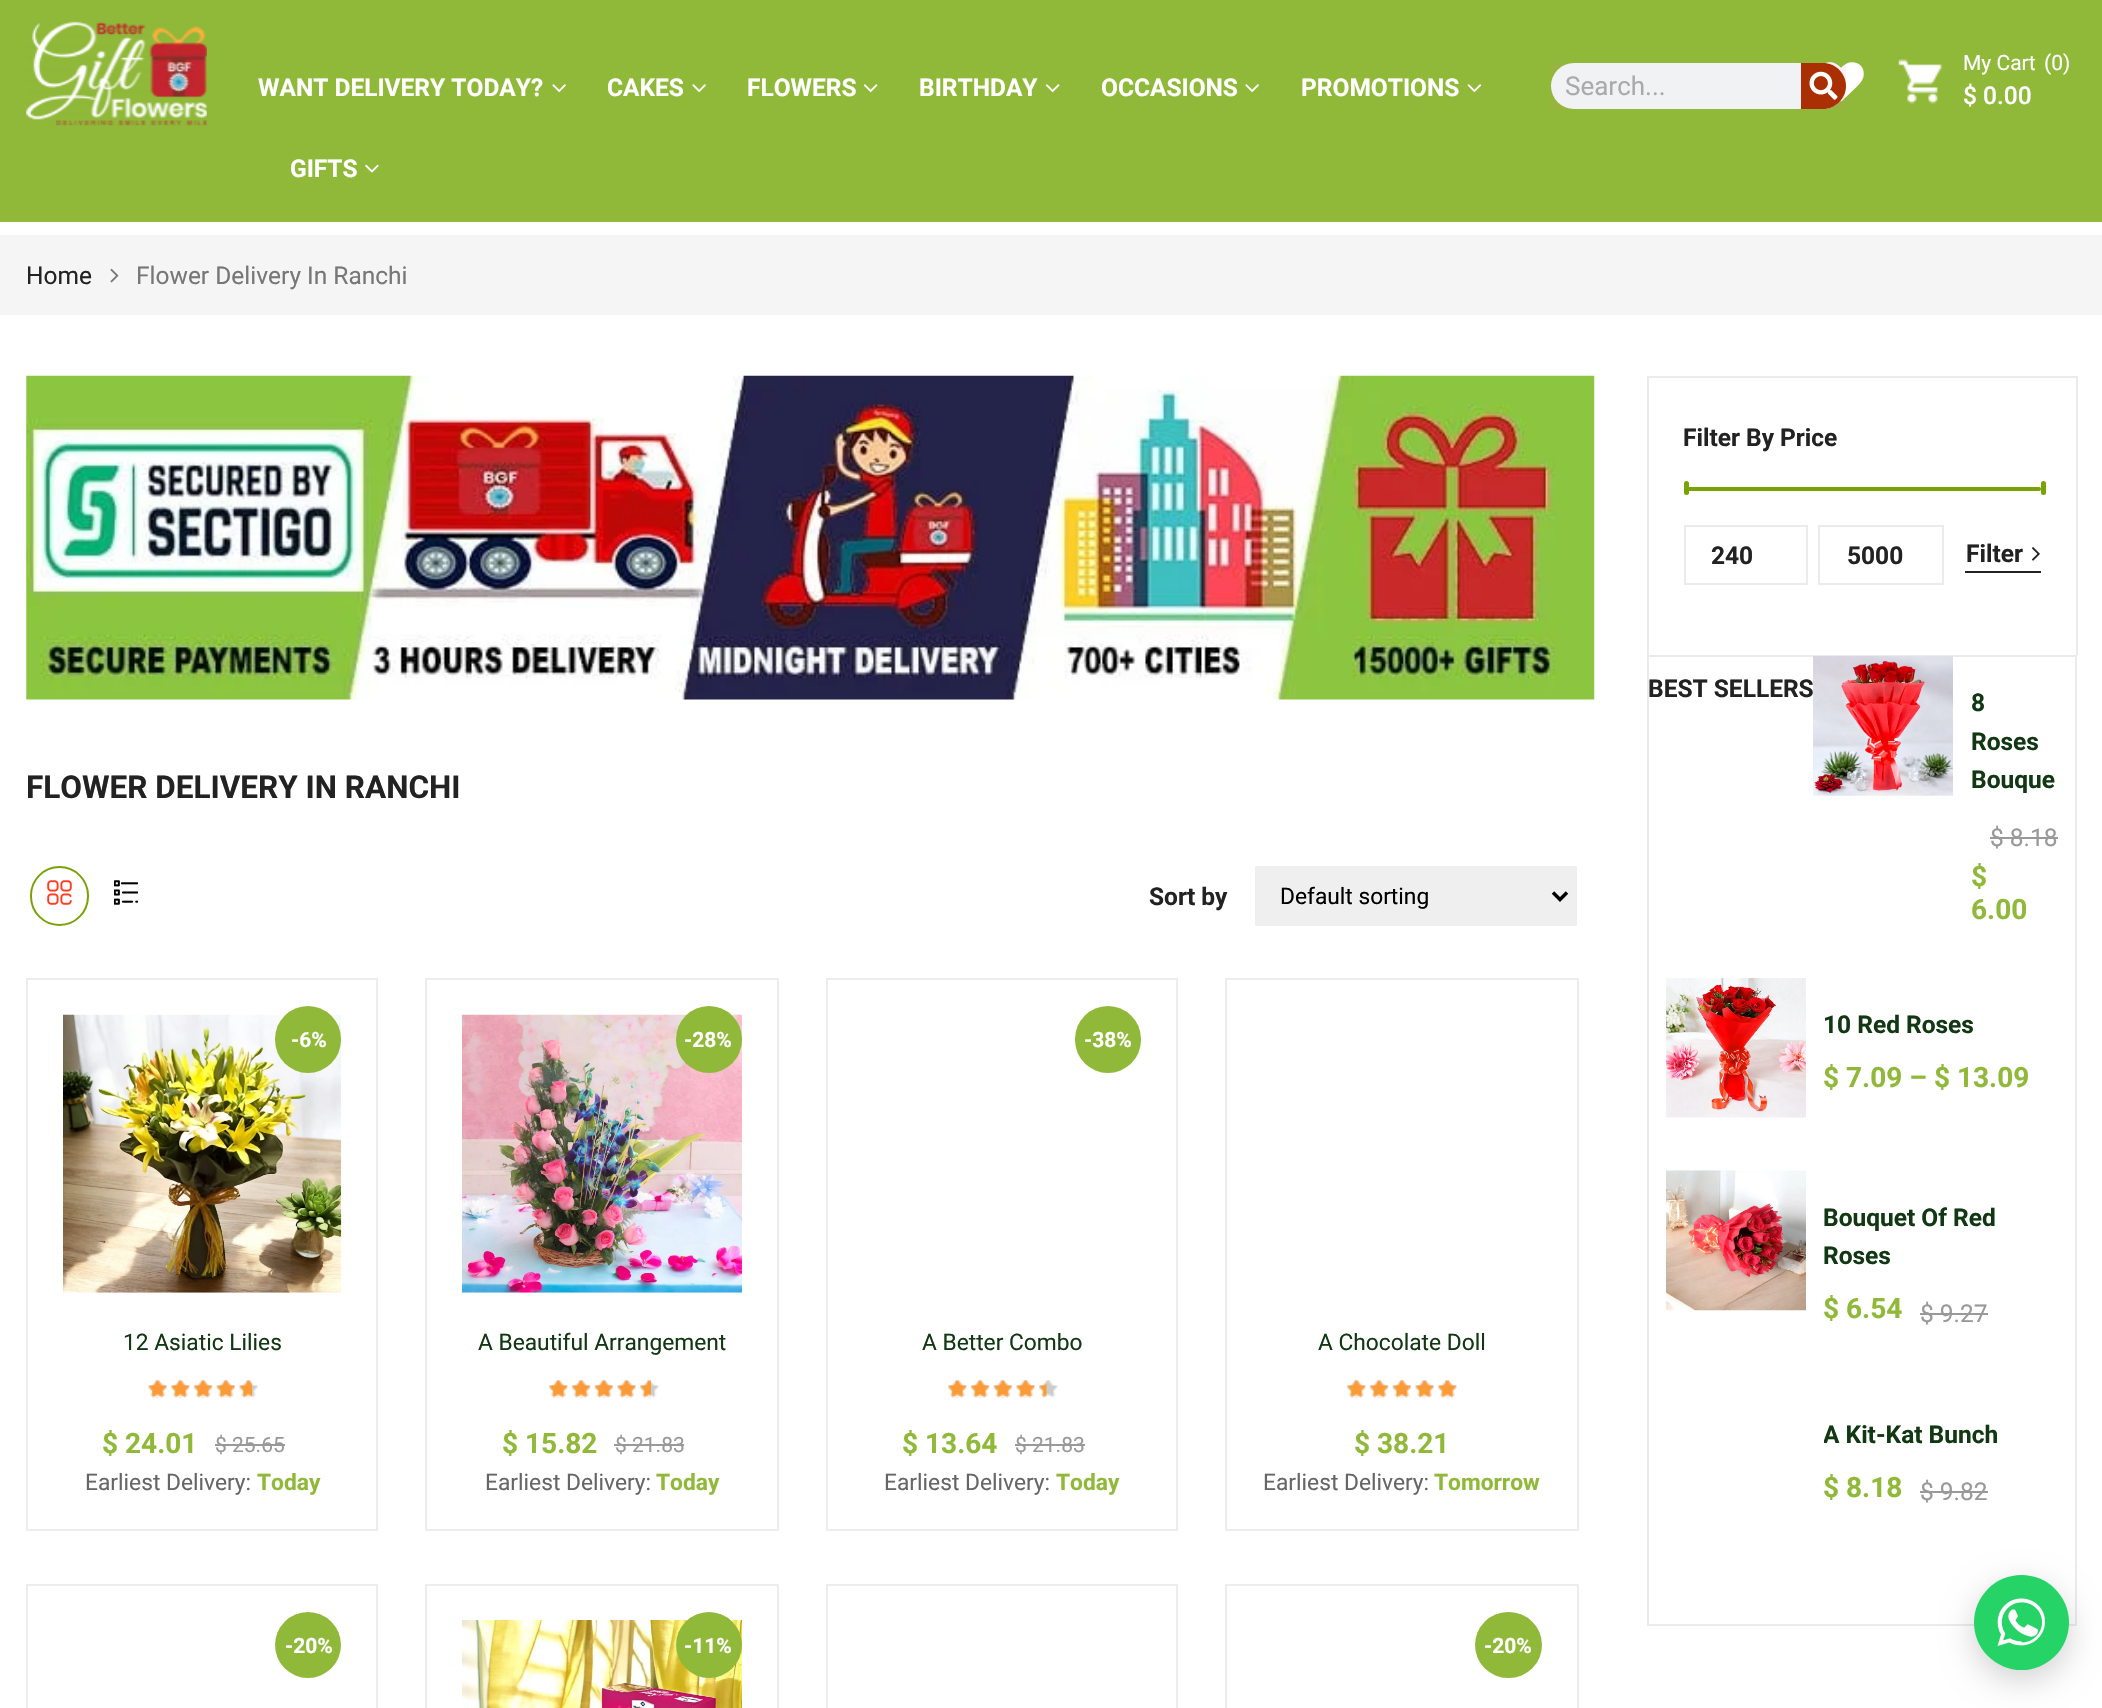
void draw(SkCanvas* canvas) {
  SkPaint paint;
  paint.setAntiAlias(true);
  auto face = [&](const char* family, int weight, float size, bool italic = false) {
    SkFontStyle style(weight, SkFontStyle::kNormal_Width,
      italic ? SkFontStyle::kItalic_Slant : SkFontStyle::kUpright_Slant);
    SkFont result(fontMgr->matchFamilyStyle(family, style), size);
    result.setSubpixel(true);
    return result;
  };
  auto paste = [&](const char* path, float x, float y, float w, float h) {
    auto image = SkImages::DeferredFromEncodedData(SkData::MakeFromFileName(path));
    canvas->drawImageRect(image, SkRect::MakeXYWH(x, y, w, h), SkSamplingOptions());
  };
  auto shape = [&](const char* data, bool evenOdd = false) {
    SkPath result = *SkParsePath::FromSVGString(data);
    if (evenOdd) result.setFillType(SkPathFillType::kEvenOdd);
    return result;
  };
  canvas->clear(0xffffffff);
  paint.setColor(0xff90b939);
  canvas->drawRect(SkRect::MakeXYWH(0, 0, 2102, 222), paint);
  paste("img/1.png", 26, 21, 181, 105);
  paste("img/2.png", 552, 84, 14, 9);
  paste("img/2.png", 692, 84, 14, 9);
  paste("img/3.png", 863, 84, 15, 9);
  paste("img/3.png", 1045, 84, 15, 9);
  paste("img/2.png", 1245, 84, 14, 9);
  paste("img/4.png", 1467, 84, 15, 9);
  paste("img/5.png", 365, 164, 14, 9);
  paste("img/7.png", 1823, 62, 41, 40);
  paint.setColor(0x1ad88d8d);
  canvas->drawRect(SkRect::MakeXYWH(1551, 63, 295, 46), paint);
  paint.setColor(0xfff1f2f3);
  canvas->drawRoundRect(SkRect::MakeXYWH(1551, 63, 295, 46), 23, 23, paint);
  paint.setColor(0xffaa3003);
  canvas->drawPath(shape("M1801 63H1823C1835.5 63 1846 73.5 1846 86C1846 98.5 1835.5 109 1823 109H1801Z"), paint);
  paste("img/6.png", 1809, 71, 29, 29);
  paste("img/8.png", 1898, 59, 45, 45);
  paint.setColor(0xfff5f5f5);
  canvas->drawRect(SkRect::MakeXYWH(0, 235, 2102, 80), paint);
  paste("img/9.png", 110, 268, 9, 15);
  paste("img/10.png", 26, 375, 1569, 325);
  paint.setStroke(true);
  paint.setStrokeWidth(2);
  paint.setColor(0xff78a206);
  canvas->drawRoundRect(SkRect::MakeXYWH(31, 867, 57, 58), 28.5f, 28.5f, paint);
  paste("img/11.png", 47, 880, 25, 25);
  paste("img/12.png", 114, 880, 24, 25);
  paint.setStroke(false);
  paint.setColor(0xffefefef);
  canvas->drawRect(SkRect::MakeXYWH(1255, 866, 322, 60), paint);
  paint.setStroke(true);
  paint.setStrokeWidth(3.5f);
  paint.setColor(0xff000000);
  canvas->drawPath(shape("M1553 892.5L1560 899.5L1567 892.5"), paint);
  paint.setStrokeWidth(2);
  paint.setColor(0xffededed);
  canvas->drawRect(SkRect::MakeXYWH(27, 979, 350, 551), paint);
  paste("img/13.png", 63, 1014, 279, 279);
  paint.setStroke(false);
  paint.setColor(0xff90b939);
  canvas->drawRoundRect(SkRect::MakeXYWH(275, 1006, 66, 67), 33, 33, paint);
  paste("img/14.png", 148, 1380, 110, 18);
  paste("img/15.png", 148, 1380, 104, 18);
  paint.setColor(0xff999999);
  canvas->drawRect(SkRect::MakeXYWH(215, 1444, 70, 2), paint);
  paint.setStroke(true);
  paint.setColor(0xffededed);
  canvas->drawRect(SkRect::MakeXYWH(426, 979, 352, 551), paint);
  paste("img/16.png", 462, 1014, 280, 279);
  paint.setStroke(false);
  paint.setColor(0xff90b939);
  canvas->drawRoundRect(SkRect::MakeXYWH(676, 1006, 66, 67), 33, 33, paint);
  paste("img/17.png", 549, 1380, 110, 18);
  paste("img/18.png", 549, 1380, 102, 18);
  paint.setColor(0xff999999);
  canvas->drawRect(SkRect::MakeXYWH(614, 1444, 70, 2), paint);
  paint.setStroke(true);
  paint.setColor(0xffededed);
  canvas->drawRect(SkRect::MakeXYWH(827, 979, 350, 551), paint);
  paint.setStroke(false);
  paint.setColor(0xff90b939);
  canvas->drawRoundRect(SkRect::MakeXYWH(1075, 1006, 66, 67), 33, 33, paint);
  paste("img/19.png", 948, 1380, 110, 18);
  paste("img/20.png", 948, 1380, 99, 18);
  paint.setColor(0xff999999);
  canvas->drawRect(SkRect::MakeXYWH(1015, 1444, 70, 2), paint);
  paint.setStroke(true);
  paint.setColor(0xffededed);
  canvas->drawRect(SkRect::MakeXYWH(1226, 979, 352, 551), paint);
  paste("img/19.png", 1347, 1380, 110, 18);
  paste("img/21.png", 1347, 1380, 110, 18);
  canvas->drawRect(SkRect::MakeXYWH(27, 1585, 350, 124), paint);
  paint.setStroke(false);
  paint.setColor(0xff90b939);
  canvas->drawCircle(308, 1645, 33, paint);
  paint.setStroke(true);
  paint.setColor(0xffededed);
  canvas->drawRect(SkRect::MakeXYWH(426, 1585, 352, 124), paint);
  paste("img/22.png", 462, 1620, 280, 88);
  paint.setStroke(false);
  paint.setColor(0xff90b939);
  canvas->drawCircle(709, 1645, 33, paint);
  paint.setStroke(true);
  paint.setColor(0xffededed);
  canvas->drawRect(SkRect::MakeXYWH(827, 1585, 350, 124), paint);
  canvas->drawRect(SkRect::MakeXYWH(1226, 1585, 352, 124), paint);
  paint.setStroke(false);
  paint.setColor(0xff90b939);
  canvas->drawRoundRect(SkRect::MakeXYWH(1475, 1612, 67, 66), 33, 33, paint);
  {
    const struct { float x, y, w, h; SkColor color; } items[] = {
      {1647, 376, 430, 2, 0xffebebeb},
      {2076, 376, 2, 279, 0xffebebeb},
      {1647, 376, 2, 279, 0xffebebeb},
    };
    for (auto [x, y, w, h, color] : items) {
      paint.setColor(color);
      canvas->drawRect(SkRect::MakeXYWH(x, y, w, h), paint);
    }
  }
  paint.setColor(0xff78a206);
  canvas->drawRoundRect(SkRect::MakeXYWH(1684, 487, 357, 4), 2, 2, paint);
  canvas->drawRoundRect(SkRect::MakeXYWH(1684, 481, 5, 14), 2.5f, 2.5f, paint);
  canvas->drawRoundRect(SkRect::MakeXYWH(2041, 481, 5, 14), 2.5f, 2.5f, paint);
  paint.setStroke(true);
  paint.setColor(0xffebebeb);
  canvas->drawRect(SkRect::MakeXYWH(1685, 526, 122, 58), paint);
  canvas->drawRect(SkRect::MakeXYWH(1819, 526, 124, 58), paint);
  paste("img/23.png", 2032, 547, 8, 14);
  paint.setStroke(false);
  paint.setColor(0xff222222);
  canvas->drawRect(SkRect::MakeXYWH(1965, 571, 76, 2), paint);
  paint.setStroke(true);
  paint.setColor(0xffebebeb);
  canvas->drawRect(SkRect::MakeXYWH(1648, 656, 428, 969), paint);
  paste("img/24.png", 1813, 656, 140, 140);
  paint.setStroke(false);
  paint.setColor(0xff999999);
  canvas->drawRect(SkRect::MakeXYWH(1990, 837, 68, 2), paint);
  paste("img/25.png", 1666, 978, 140, 140);
  paste("img/26.png", 1666, 1170, 140, 141);
  canvas->drawRect(SkRect::MakeXYWH(1920, 1313, 68, 2), paint);
  canvas->drawRect(SkRect::MakeXYWH(1920, 1491, 68, 2), paint);
  paint.setColor(0x2e000000);
  paint.setMaskFilter(SkMaskFilter::MakeBlur(kNormal_SkBlurStyle, 16));
  canvas->drawRoundRect(SkRect::MakeXYWH(1974, 1586, 95, 94), 47, 47, paint);
  paint.setMaskFilter(nullptr);
  paint.setColor(0xff25d366);
  canvas->drawCircle(2021.5f, 1622.5f, 47.5f, paint);
  paste("img/27.png", 1997, 1598, 48, 48);
  auto f0 = face("Roboto", 700, 24.5f);
  paint.setColor(0xffffffff);
  {
    const struct { const char* s; float x, y; } items[] = {
      {"WANT DELIVERY TODAY?", 258, 96},
      {"CAKES", 607, 96},
      {"FLOWERS", 747, 96},
      {"BIRTHDAY", 919, 96},
      {"OCCASIONS", 1101, 96},
      {"PROMOTIONS", 1301, 96},
      {"GIFTS", 290, 177},
    };
    for (auto [s, x, y] : items) {
      canvas->drawString(s, x, y, f0, paint);
    }
  }
  auto f1 = face("Roboto", 400, 26);
  paint.setColor(0xffaaaaaa);
  canvas->drawString("Search...", 1565, 95, f1, paint);
  auto f2 = face("Roboto", 400, 21);
  paint.setColor(0xffffffff);
  canvas->drawString("My Cart", 1963, 70, f2, paint);
  canvas->drawString("(0)", 2044, 70, f2, paint);
  auto f3 = face("Roboto", 500, 24.5f);
  canvas->drawString("$ 0.00", 1963, 104, f3, paint);
  auto f4 = face("Roboto", 400, 24.5f);
  paint.setColor(0xff222222);
  canvas->drawString("Home", 26, 284, f4, paint);
  paint.setColor(0xff777777);
  canvas->drawString("Flower Delivery In Ranchi", 136, 284, f4, paint);
  auto f5 = face("Roboto", 700, 31.5f);
  paint.setColor(0xff222222);
  canvas->drawString("FLOWER DELIVERY IN RANCHI", 26, 798, f5, paint);
  canvas->drawString("Sort by", 1149, 905, f0, paint);
  auto f6 = face("Roboto", 400, 22.75f);
  paint.setColor(0xff000000);
  canvas->drawString("Default sorting", 1280, 904, f6, paint);
  auto f7 = face("Roboto", 700, 21);
  paint.setColor(0xffffffff);
  canvas->drawString("-6%", 291, 1047, f7, paint);
  paint.setColor(0xff113813);
  canvas->drawString("12 Asiatic Lilies", 123, 1350, f6, paint);
  auto f8 = face("Roboto", 700, 28);
  paint.setColor(0xff90b939);
  canvas->drawString("$ 24.01", 102, 1453, f8, paint);
  paint.setColor(0xff999999);
  canvas->drawString("$ 25.65", 215, 1452, f2, paint);
  paint.setColor(0xff666666);
  canvas->drawString("Earliest Delivery:", 85, 1490, f6, paint);
  auto f9 = face("Roboto", 700, 22.75f);
  paint.setColor(0xff90b939);
  canvas->drawString("Today", 257, 1490, f9, paint);
  paint.setColor(0xffffffff);
  canvas->drawString("-28%", 684, 1047, f7, paint);
  paint.setColor(0xff113813);
  canvas->drawString("A Beautiful Arrangement", 478, 1350, f6, paint);
  paint.setColor(0xff90b939);
  canvas->drawString("$ 15.82", 502, 1453, f8, paint);
  paint.setColor(0xff999999);
  canvas->drawString("$ 21.83", 615, 1452, f2, paint);
  paint.setColor(0xff666666);
  canvas->drawString("Earliest Delivery:", 485, 1490, f6, paint);
  paint.setColor(0xff90b939);
  canvas->drawString("Today", 656, 1490, f9, paint);
  paint.setColor(0xffffffff);
  canvas->drawString("-38%", 1084, 1047, f7, paint);
  paint.setColor(0xff113813);
  canvas->drawString("A Better Combo", 922, 1350, f6, paint);
  paint.setColor(0xff90b939);
  canvas->drawString("$ 13.64", 902, 1453, f8, paint);
  paint.setColor(0xff999999);
  canvas->drawString("$ 21.83", 1015, 1452, f2, paint);
  paint.setColor(0xff666666);
  canvas->drawString("Earliest Delivery:", 884, 1490, f6, paint);
  paint.setColor(0xff90b939);
  canvas->drawString("Today", 1056, 1490, f9, paint);
  paint.setColor(0xff113813);
  canvas->drawString("A Chocolate Doll", 1318, 1350, f6, paint);
  paint.setColor(0xff90b939);
  canvas->drawString("$ 38.21", 1354, 1453, f8, paint);
  paint.setColor(0xff666666);
  canvas->drawString("Earliest Delivery:", 1263, 1490, f6, paint);
  paint.setColor(0xff90b939);
  canvas->drawString("Tomorrow", 1434, 1490, f9, paint);
  paint.setColor(0xffffffff);
  {
    const struct { const char* s; float x, y; } items[] = {
      {"-20%", 285, 1653},
      {"-11%", 684, 1653},
      {"-20%", 1484, 1653},
    };
    for (auto [s, x, y] : items) {
      canvas->drawString(s, x, y, f7, paint);
    }
  }
  paint.setColor(0xff222222);
  {
    const struct { const char* s; float x, y; } items[] = {
      {"Filter By Price", 1683, 446},
      {"240", 1711, 564},
      {"5000", 1847, 564},
      {"Filter", 1966, 562},
      {"BEST SELLERS", 1648, 697},
    };
    for (auto [s, x, y] : items) {
      canvas->drawString(s, x, y, f0, paint);
    }
  }
  paint.setColor(0xff113813);
  {
    const struct { const char* s; float x, y; } items[] = {
      {"8", 1971, 711},
      {"Roses", 1971, 750},
      {"Bouque", 1971, 788},
    };
    for (auto [s, x, y] : items) {
      canvas->drawString(s, x, y, f0, paint);
    }
  }
  paint.setColor(0xff999999);
  canvas->drawString("$ 8.18", 1990, 846, f4, paint);
  paint.setColor(0xff90b939);
  canvas->drawString("$", 1971, 886, f8, paint);
  canvas->drawString("6.00", 1971, 919, f8, paint);
  paint.setColor(0xff113813);
  canvas->drawString("10 Red Roses", 1823, 1033, f0, paint);
  paint.setColor(0xff90b939);
  canvas->drawString("$ 7.09 – $ 13.09", 1823, 1087, f8, paint);
  paint.setColor(0xff113813);
  canvas->drawString("Bouquet Of Red", 1823, 1226, f0, paint);
  canvas->drawString("Roses", 1823, 1264, f0, paint);
  paint.setColor(0xff90b939);
  canvas->drawString("$ 6.54", 1823, 1318, f8, paint);
  paint.setColor(0xff999999);
  canvas->drawString("$ 9.27", 1920, 1322, f4, paint);
  canvas->save();
  canvas->clipRect(SkRect::MakeXYWH(1824, 1388, 234, 126));
  paint.setColor(0xff113813);
  canvas->drawString("A Kit-Kat Bunch", 1823, 1443, f0, paint);
  canvas->restore();
  paint.setColor(0xff90b939);
  canvas->drawString("$ 8.18", 1823, 1497, f8, paint);
  paint.setColor(0xff999999);
  canvas->drawString("$ 9.82", 1920, 1500, f4, paint);
}
